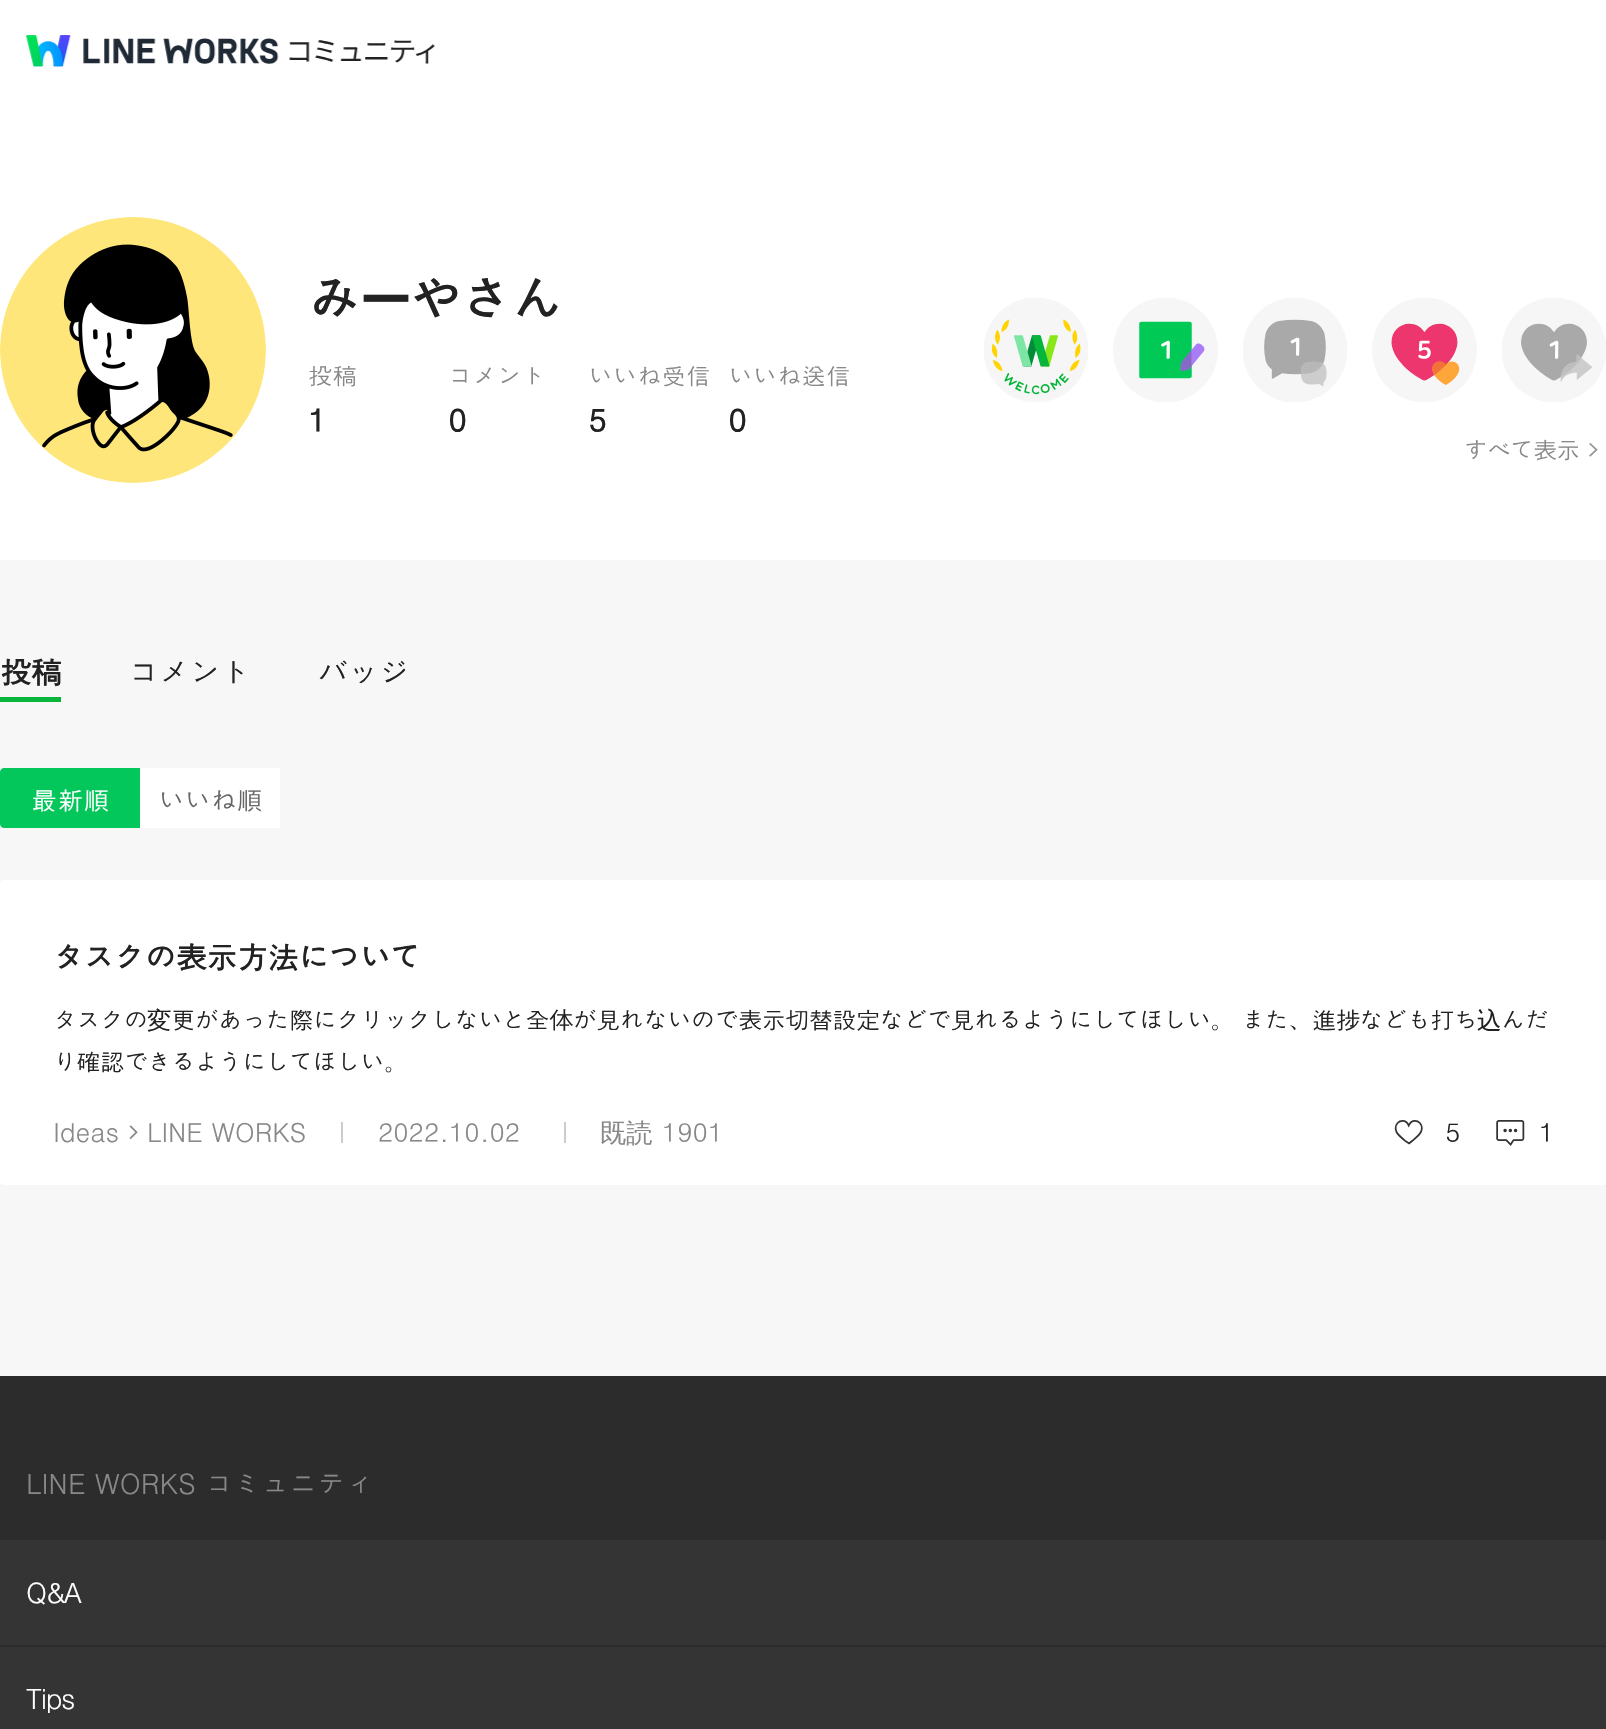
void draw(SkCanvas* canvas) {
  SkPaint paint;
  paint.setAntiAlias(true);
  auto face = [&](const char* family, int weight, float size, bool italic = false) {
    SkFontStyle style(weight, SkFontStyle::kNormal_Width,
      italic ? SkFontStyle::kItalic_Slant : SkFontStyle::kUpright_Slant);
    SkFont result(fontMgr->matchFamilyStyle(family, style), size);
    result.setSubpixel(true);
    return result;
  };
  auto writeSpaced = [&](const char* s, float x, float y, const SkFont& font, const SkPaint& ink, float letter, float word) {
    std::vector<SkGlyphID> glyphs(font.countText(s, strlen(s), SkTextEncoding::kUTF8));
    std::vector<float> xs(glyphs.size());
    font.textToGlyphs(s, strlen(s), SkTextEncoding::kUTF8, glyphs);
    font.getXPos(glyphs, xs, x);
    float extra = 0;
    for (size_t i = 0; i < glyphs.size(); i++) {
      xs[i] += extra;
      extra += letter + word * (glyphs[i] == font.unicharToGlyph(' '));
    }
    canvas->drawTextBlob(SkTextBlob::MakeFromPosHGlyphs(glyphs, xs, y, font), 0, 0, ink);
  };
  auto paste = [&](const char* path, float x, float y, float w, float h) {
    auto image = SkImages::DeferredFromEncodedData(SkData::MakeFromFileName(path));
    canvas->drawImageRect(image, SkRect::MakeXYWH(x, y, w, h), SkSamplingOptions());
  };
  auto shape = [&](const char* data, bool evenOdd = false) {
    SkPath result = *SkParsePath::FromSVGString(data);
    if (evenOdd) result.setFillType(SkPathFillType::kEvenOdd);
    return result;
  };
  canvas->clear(0xffffffff);
  paste("img/1.png", 26, 35, 253, 32);
  paste("img/2.png", 289, 40, 146, 24);
  paint.setColor(0xfff7f7f7);
  canvas->drawRect(SkRect::MakeXYWH(0, 560, 1606, 816), paint);
  paste("img/3.png", 0, 217, 266, 266);
  paste("img/4.png", 984, 298, 104, 104);
  paste("img/5.png", 1113, 298, 105, 104);
  paste("img/6.png", 1243, 298, 104, 104);
  paste("img/7.png", 1372, 298, 105, 104);
  paste("img/8.png", 1502, 298, 104, 104);
  paste("img/9.png", 1589, 442, 9, 15);
  paint.setColor(0xff07b53b);
  canvas->drawRect(SkRect::MakeXYWH(0, 697, 61, 5), paint);
  paint.setColor(0xff03c75a);
  canvas->drawPath(shape("M4 768H140V828H4C2 828 0 826 0 824V772C0 770 2 768 4 768Z"), paint);
  paint.setColor(0xffffffff);
  canvas->drawRect(SkRect::MakeXYWH(140, 768, 140, 60), paint);
  canvas->drawRoundRect(SkRect::MakeXYWH(0, 880, 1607, 305), 4, 4, paint);
  paste("img/10.png", 129, 1125, 9, 15);
  paint.setColor(0xffcccccc);
  canvas->drawRect(SkRect::MakeXYWH(341, 1122, 2, 21), paint);
  canvas->drawRect(SkRect::MakeXYWH(564, 1122, 2, 21), paint);
  paste("img/11.png", 1394, 1120, 29, 25);
  paste("img/12.png", 1496, 1120, 29, 26);
  {
    const struct { float x, y, w, h; SkColor color; } items[] = {
      {0, 1376, 1606, 164, 0xff2c2c2c},
      {0, 1540, 1606, 105, 0xff343434},
      {0, 1647, 1606, 82, 0xff343434},
      {0, 1645, 1606, 2, 0xff2c2c2c},
    };
    for (auto [x, y, w, h, color] : items) {
      paint.setColor(color);
      canvas->drawRect(SkRect::MakeXYWH(x, y, w, h), paint);
    }
  }
  auto f0 = face("Dotum", 700, 52.5f);
  paint.setColor(0xff222222);
  writeSpaced("み", 308, 319, f0, paint, -2, 0);
  auto f1 = face("WenQuanYi Zen Hei", 700, 52.5f);
  writeSpaced("ー", 359, 319, f1, paint, -2, 0);
  writeSpaced("やさん", 410, 319, f0, paint, -2, 0);
  auto f2 = face("Dotum", 400, 24.5f);
  paint.setColor(0xff888888);
  canvas->drawString("投稿", 308, 385, f2, paint);
  auto f3 = face("Dotum", 700, 31.5f);
  paint.setColor(0xff222222);
  canvas->drawString("1", 308, 432, f3, paint);
  paint.setColor(0xff888888);
  canvas->drawString("コメント", 448, 385, f2, paint);
  paint.setColor(0xff222222);
  canvas->drawString("0", 448, 432, f3, paint);
  paint.setColor(0xff888888);
  canvas->drawString("いいね受信", 588, 385, f2, paint);
  paint.setColor(0xff222222);
  canvas->drawString("5", 588, 432, f3, paint);
  paint.setColor(0xff888888);
  canvas->drawString("いいね送信", 728, 385, f2, paint);
  paint.setColor(0xff222222);
  canvas->drawString("0", 728, 432, f3, paint);
  paint.setColor(0xff888888);
  writeSpaced("すべて表示", 1464, 459, f2, paint, -1.5f, 0);
  paint.setColor(0xff222222);
  writeSpaced("投稿", 0, 684, f3, paint, -0.88f, 0);
  auto f4 = face("Dotum", 400, 31.5f);
  writeSpaced("コメント", 128, 684, f4, paint, -0.88f, 0);
  writeSpaced("バッジ", 317, 684, f4, paint, -0.88f, 0);
  auto f5 = face("Dotum", 400, 26.25f);
  paint.setColor(0xffffffff);
  canvas->drawString("最新順", 31, 810, f5, paint);
  paint.setColor(0xff666666);
  canvas->drawString("いいね順", 158, 810, f5, paint);
  paint.setColor(0xff222222);
  writeSpaced("タスクの表示方法について", 53, 969, f3, paint, -0.88f, 0);
  writeSpaced("タスクの", 53, 1029, f2, paint, -0.88f, 0);
  auto f6 = face("WenQuanYi Zen Hei", 500, 24.5f);
  writeSpaced("変", 147, 1029, f6, paint, -0.88f, 0);
  writeSpaced("更があった際にクリックしないと全体が見れないので表示切替設定などで見れるようにしてほしい。 また、進捗なども打ち", 171, 1029, f2, paint, -0.88f, 0);
  writeSpaced("込", 1477, 1029, f6, paint, -0.88f, 0);
  writeSpaced("んだ", 1501, 1029, f2, paint, -0.88f, 0);
  writeSpaced("り確認できるようにしてほしい。", 53, 1071, f2, paint, -0.88f, 0);
  paint.setColor(0xff888888);
  {
    const struct { const char* s; float x, y; } items[] = {
      {"Ideas", 53, 1142},
      {"LINE WORKS", 147, 1142},
      {"2022.10.02", 378, 1142},
    };
    for (auto [s, x, y] : items) {
      canvas->drawString(s, x, y, f5, paint);
    }
  }
  auto f7 = face("WenQuanYi Zen Hei", 500, 26.25f);
  canvas->drawString("既読", 600, 1142, f7, paint);
  canvas->drawString("1901", 662, 1142, f5, paint);
  paint.setColor(0xff222222);
  canvas->drawString("5", 1445, 1142, f5, paint);
  canvas->drawString("1", 1539, 1142, f5, paint);
  auto f8 = face("Dotum", 400, 28);
  paint.setColor(0xff888888);
  canvas->drawString("LINE WORKS コミュニティ", 26, 1494, f8, paint);
  paint.setColor(0xffffffff);
  writeSpaced("Q&A", 26, 1603, f8, paint, -1.5f, 0);
  writeSpaced("Tips", 26, 1709, f8, paint, -1.5f, 0);
}
